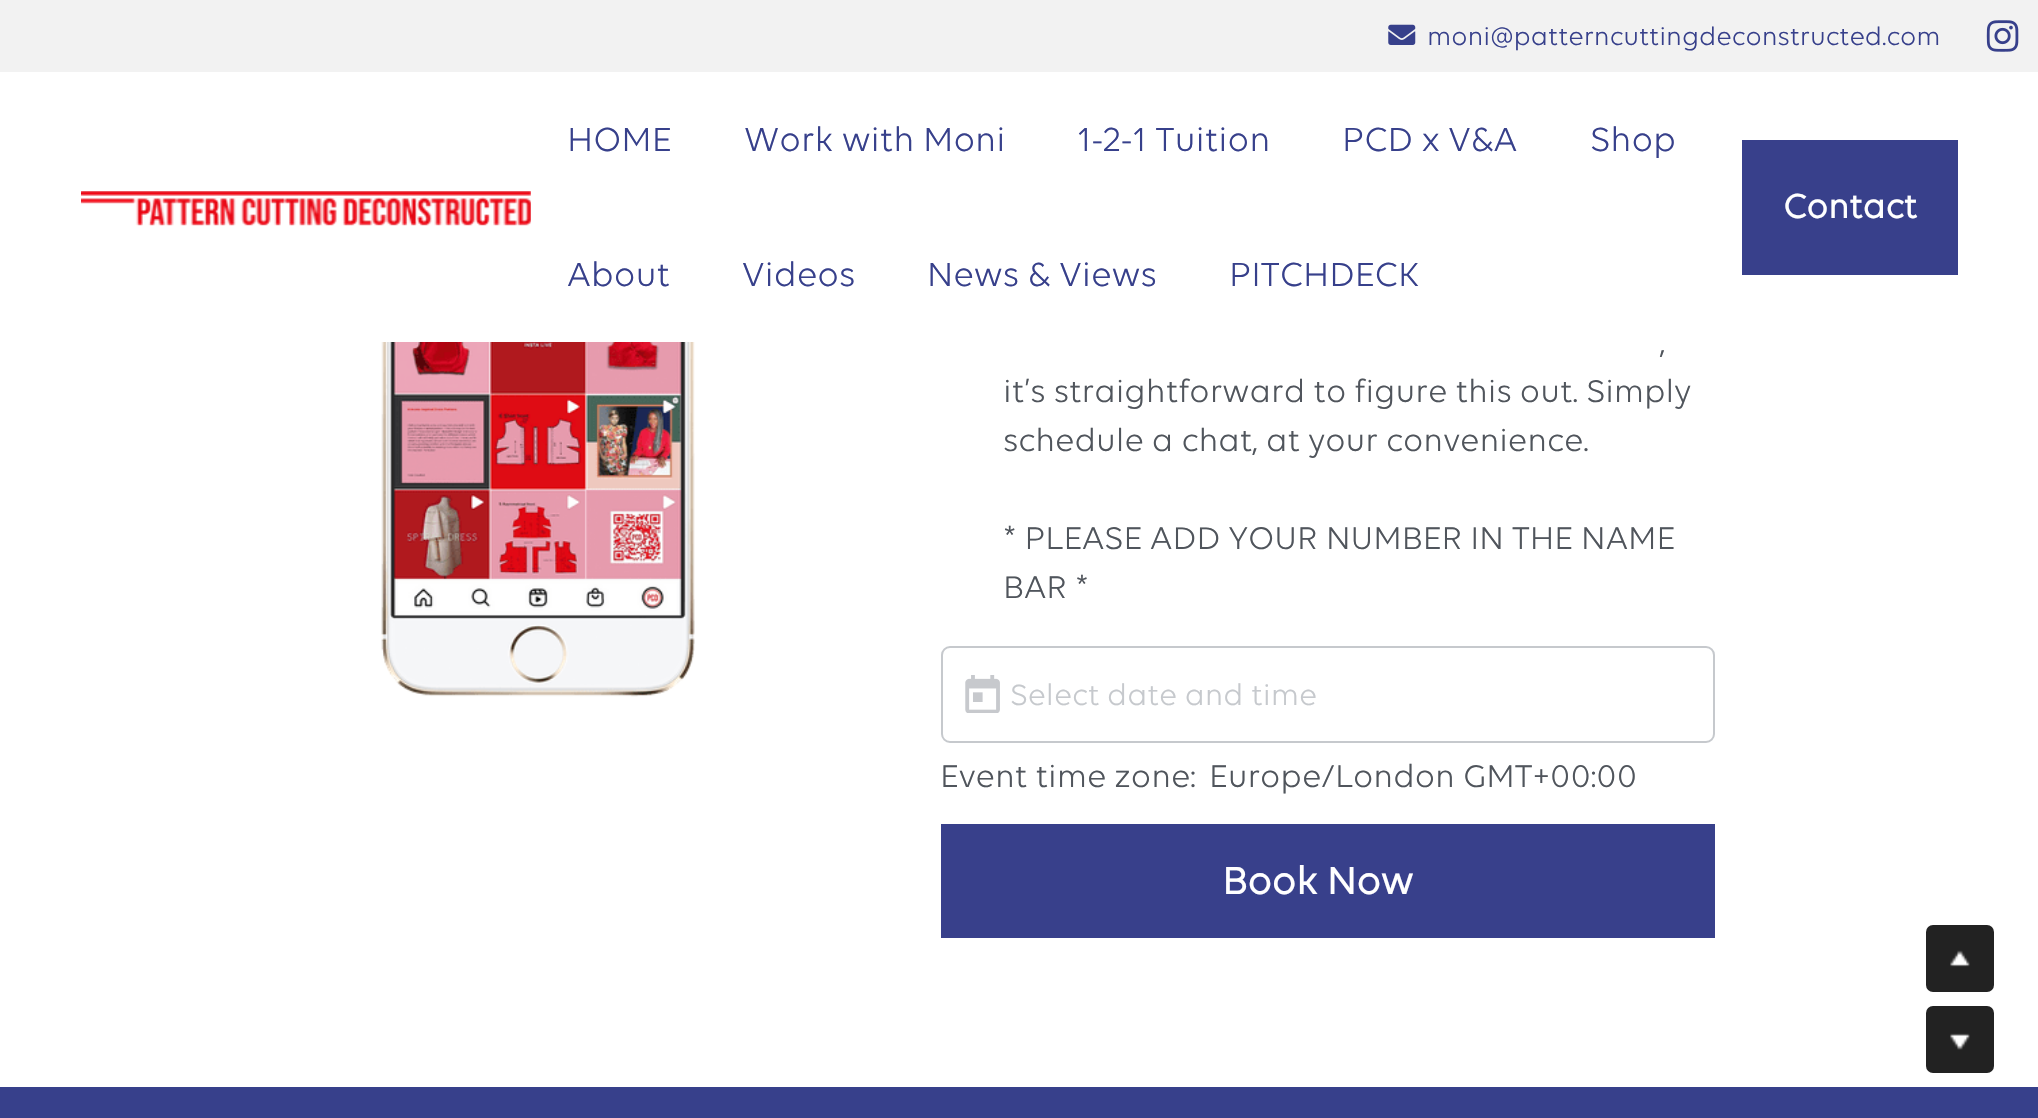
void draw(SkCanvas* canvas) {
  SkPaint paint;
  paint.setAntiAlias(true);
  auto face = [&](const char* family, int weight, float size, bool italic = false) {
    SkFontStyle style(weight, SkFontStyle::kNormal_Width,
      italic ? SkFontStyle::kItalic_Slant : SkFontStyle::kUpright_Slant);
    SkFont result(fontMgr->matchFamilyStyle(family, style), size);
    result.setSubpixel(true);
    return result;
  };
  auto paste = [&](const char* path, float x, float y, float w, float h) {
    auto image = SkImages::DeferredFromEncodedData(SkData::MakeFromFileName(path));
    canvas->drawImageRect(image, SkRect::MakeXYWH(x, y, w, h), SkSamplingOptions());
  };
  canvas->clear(0xffffffff);
  paint.setColor(0xfff2f2f2);
  canvas->drawRect(SkRect::MakeXYWH(0, 0, 2038, 72), paint);
  paste("img/1.png", 1388, 24, 28, 21);
  paste("img/2.png", 1986, 20, 33, 32);
  paste("img/3.png", 81, 191, 450, 35);
  paint.setColor(0xff38408b);
  canvas->drawRect(SkRect::MakeXYWH(1742, 140, 216, 135), paint);
  paste("img/4.png", 381, 342, 314, 355);
  paint.setStroke(true);
  paint.setStrokeWidth(2);
  paint.setColor(0xffc6c9cd);
  canvas->drawRoundRect(SkRect::MakeXYWH(942, 647, 772, 95), 8, 8, paint);
  paste("img/5.png", 965, 675, 35, 38);
  paint.setStroke(false);
  paint.setColor(0xff38408b);
  canvas->drawRect(SkRect::MakeXYWH(941, 824, 774, 114), paint);
  paint.setColor(0xff222222);
  canvas->drawRoundRect(SkRect::MakeXYWH(1926, 925, 68, 67), 7, 7, paint);
  paste("img/6.png", 1950, 950, 20, 17);
  canvas->drawRoundRect(SkRect::MakeXYWH(1926, 1006, 68, 67), 7, 7, paint);
  paste("img/7.png", 1950, 1033, 20, 17);
  paint.setColor(0xff37408b);
  canvas->drawRect(SkRect::MakeXYWH(0, 1087, 2038, 31), paint);
  auto f0 = face("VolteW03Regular", 400, 27);
  canvas->drawString("moni@patterncuttingdeconstructed.com", 1427, 45, f0, paint);
  auto f1 = face("VolteW03Regular", 400, 36);
  {
    const struct { const char* s; float x, y; } items[] = {
      {"HOME", 567, 151},
      {"Work with Moni", 744, 151},
      {"1-2-1 Tuition", 1077, 151},
      {"PCD x V&A", 1342, 151},
      {"Shop", 1590, 151},
      {"About", 567, 286},
      {"Videos", 742, 286},
      {"News & Views", 927, 286},
      {"PITCHDECK", 1229, 286},
    };
    for (auto [s, x, y] : items) {
      canvas->drawString(s, x, y, f1, paint);
    }
  }
  auto f2 = face("VolteW03Regular", 700, 36);
  paint.setColor(0xffffffff);
  canvas->drawString("Contact", 1783, 218, f2, paint);
  auto f3 = face("VolteW03Regular", 400, 33.75f);
  paint.setColor(0xff50555c);
  {
    const struct { const char* s; float x, y; } items[] = {
      {",", 1660, 353},
      {"it’s straightforward to figure this out. Simply", 1003, 402},
      {"schedule a chat, at your convenience.", 1003, 451},
      {"* PLEASE ADD YOUR NUMBER IN THE NAME", 1003, 549},
      {"BAR *", 1003, 598},
    };
    for (auto [s, x, y] : items) {
      canvas->drawString(s, x, y, f3, paint);
    }
  }
  auto f4 = face("VolteW03Regular", 400, 31.5f);
  paint.setColor(0xffc6c9cd);
  canvas->drawString("Select date and time", 1010, 705, f4, paint);
  paint.setColor(0xff50555c);
  canvas->drawString("Event time zone:", 940, 787, f3, paint);
  canvas->drawString("Europe/London GMT+00:00", 1209, 787, f3, paint);
  auto f5 = face("VolteW03Regular", 700, 40.5f);
  paint.setColor(0xffffffff);
  canvas->drawString("Book Now", 1222, 894, f5, paint);
}
